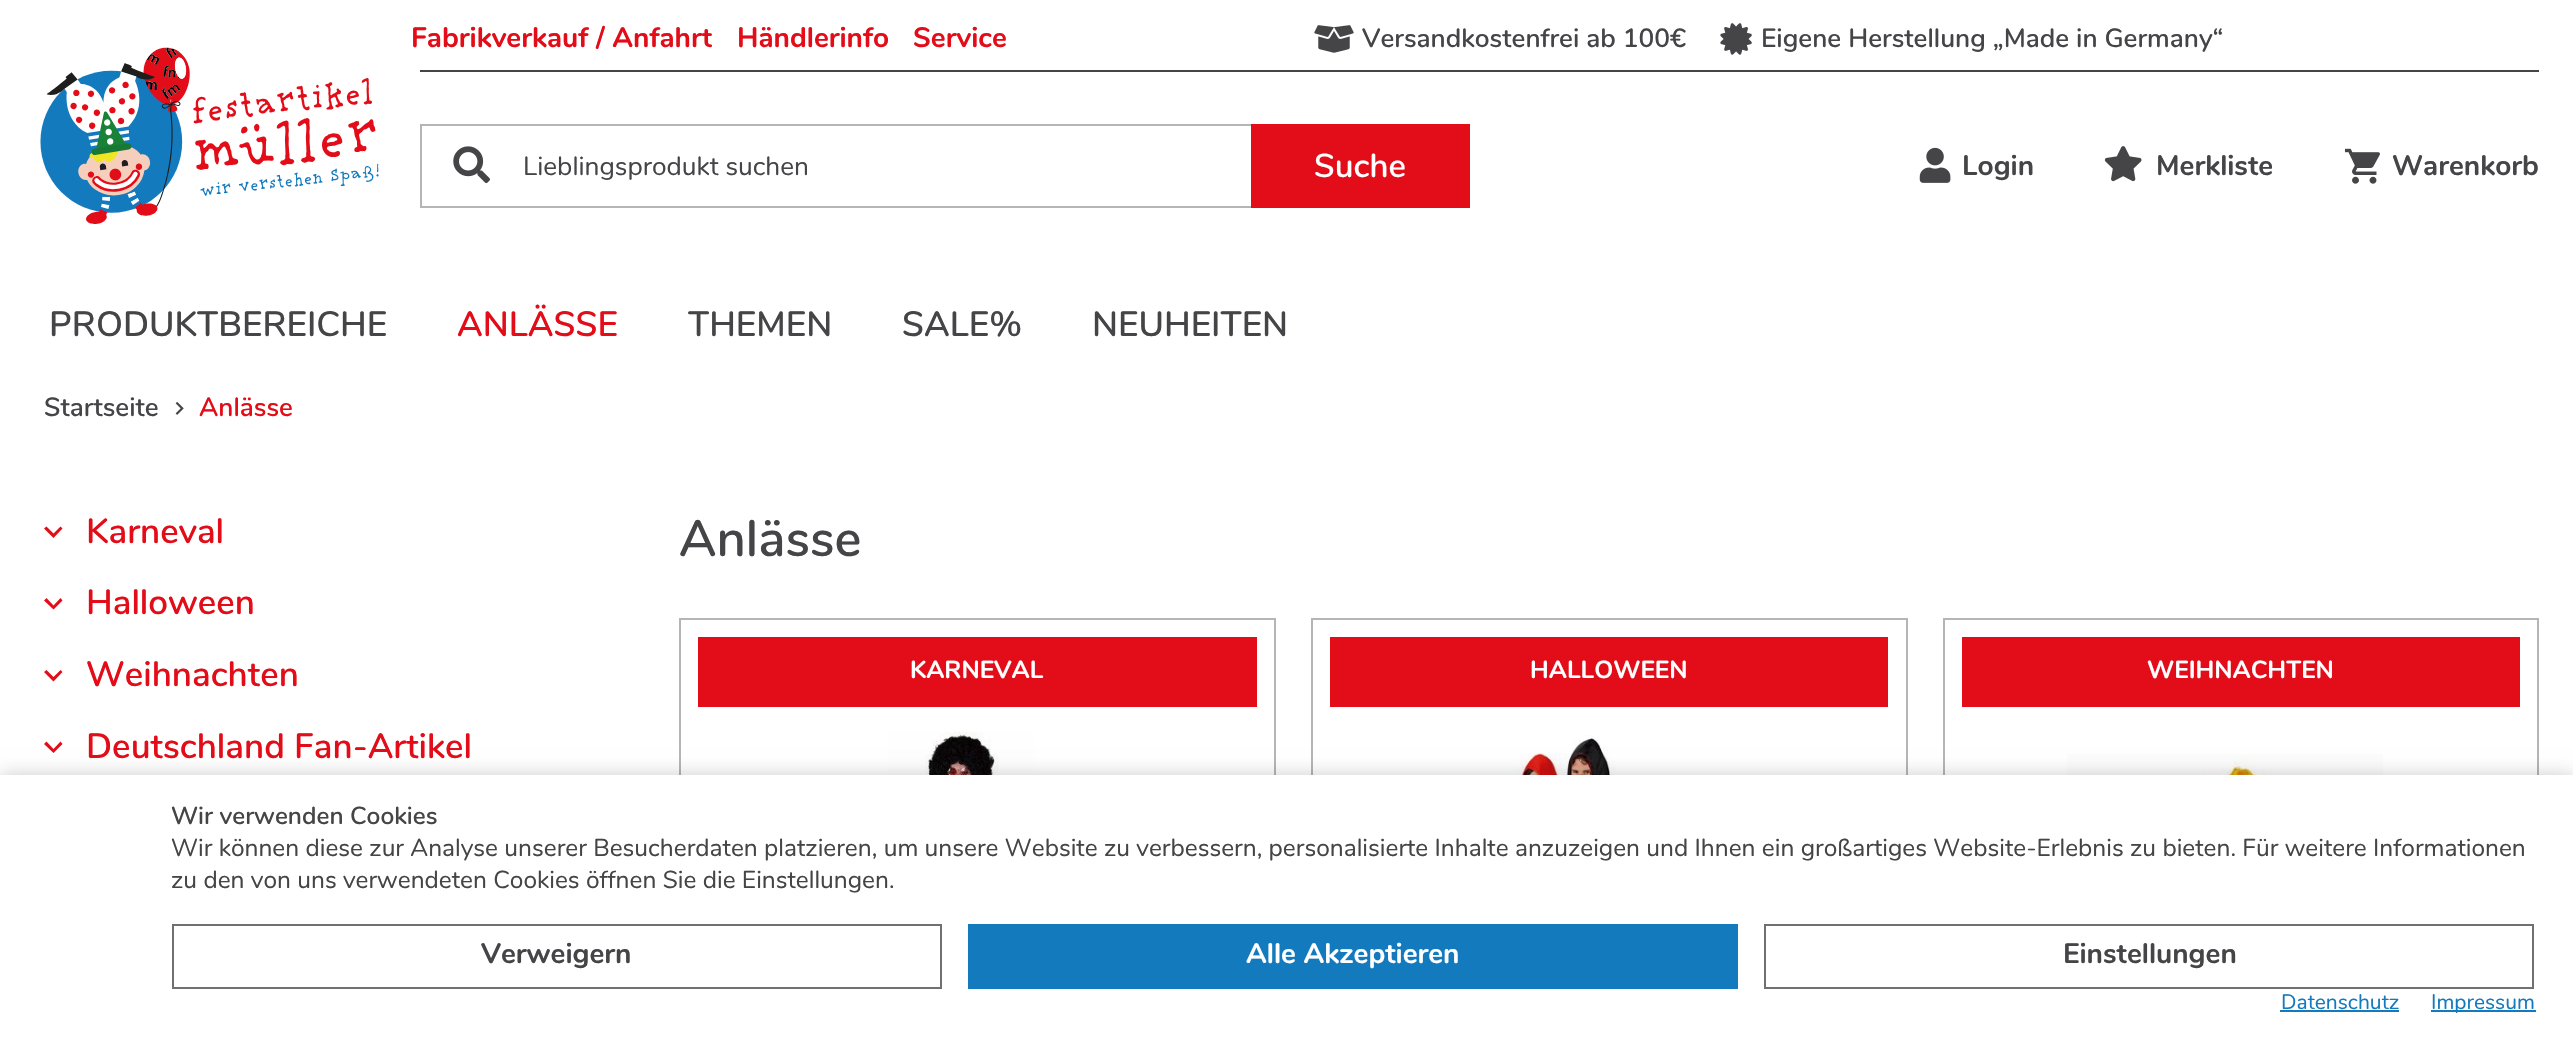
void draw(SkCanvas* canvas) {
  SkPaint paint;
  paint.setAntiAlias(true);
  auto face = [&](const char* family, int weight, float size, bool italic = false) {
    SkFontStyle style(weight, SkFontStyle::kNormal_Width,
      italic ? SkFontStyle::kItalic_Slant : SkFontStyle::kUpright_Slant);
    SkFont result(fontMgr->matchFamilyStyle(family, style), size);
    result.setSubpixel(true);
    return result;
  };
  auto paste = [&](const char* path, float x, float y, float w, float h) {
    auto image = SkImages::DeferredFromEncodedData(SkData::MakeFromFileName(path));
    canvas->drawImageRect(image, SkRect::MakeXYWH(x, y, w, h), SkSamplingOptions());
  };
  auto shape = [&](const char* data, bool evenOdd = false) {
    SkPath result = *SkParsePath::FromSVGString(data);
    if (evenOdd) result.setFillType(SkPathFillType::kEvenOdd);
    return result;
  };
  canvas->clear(0xffffffff);
  paste("img/1.png", 40, 47, 339, 177);
  paint.setColor(0xff454548);
  canvas->drawRect(SkRect::MakeXYWH(420, 70, 2119, 2), paint);
  paste("img/2.png", 1314, 25, 40, 28);
  paste("img/3.png", 1720, 23, 32, 32);
  paint.setStroke(true);
  paint.setStrokeWidth(2);
  paint.setColor(0xffb5b5b5);
  canvas->drawRect(SkRect::MakeXYWH(421, 125, 1048, 82), paint);
  paste("img/4.png", 453, 146, 37, 38);
  paint.setStroke(false);
  paint.setColor(0xffe20d18);
  canvas->drawRect(SkRect::MakeXYWH(1251, 124, 219, 84), paint);
  paste("img/5.png", 1919, 147, 32, 36);
  paste("img/6.png", 2104, 146, 38, 36);
  paste("img/7.png", 2344, 148, 36, 36);
  paste("img/8.png", 175, 401, 9, 14);
  canvas->drawPath(shape("M46.5 526.5L53.5 533.5L60.5 526.5L62.5 528.5L53.5 538L44 528.5Z"), paint);
  canvas->drawPath(shape("M46.5 598L53.5 605.5L60.5 598L62.5 600.5L53.5 609.5L44 600.5Z"), paint);
  canvas->drawPath(shape("M46.5 670L53.5 677L60.5 670L62.5 672L53.5 681.5L44 672Z"), paint);
  canvas->drawPath(shape("M46.5 741.5L53.5 749L60.5 741.5L62.5 744L53.5 753L44 744Z"), paint);
  paint.setStroke(true);
  paint.setColor(0xffb5b5b5);
  canvas->drawRect(SkRect::MakeXYWH(680, 619, 595, 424), paint);
  paint.setStroke(false);
  paint.setColor(0xffe20d18);
  canvas->drawRect(SkRect::MakeXYWH(698, 637, 559, 70), paint);
  paste("img/9.png", 888, 731, 145, 44);
  paint.setStroke(true);
  paint.setColor(0xffb5b5b5);
  canvas->drawRect(SkRect::MakeXYWH(1312, 619, 595, 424), paint);
  paint.setStroke(false);
  paint.setColor(0xffe20d18);
  canvas->drawRect(SkRect::MakeXYWH(1330, 637, 558, 70), paint);
  paste("img/10.png", 1501, 735, 239, 40);
  paint.setStroke(true);
  paint.setColor(0xffb5b5b5);
  canvas->drawRect(SkRect::MakeXYWH(1944, 619, 594, 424), paint);
  paint.setStroke(false);
  paint.setColor(0xffe20d18);
  canvas->drawRect(SkRect::MakeXYWH(1962, 637, 558, 70), paint);
  paste("img/11.png", 2067, 754, 316, 21);
  paint.setColor(0x33000000);
  paint.setMaskFilter(SkMaskFilter::MakeBlur(kNormal_SkBlurStyle, 9));
  canvas->drawRect(SkRect::MakeXYWH(0, 775, 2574, 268), paint);
  paint.setMaskFilter(nullptr);
  paint.setColor(0xffffffff);
  canvas->drawRect(SkRect::MakeXYWH(0, 775, 2573, 267), paint);
  paint.setStroke(true);
  paint.setColor(0xff707070);
  canvas->drawRect(SkRect::MakeXYWH(173, 925, 768, 63), paint);
  paint.setStroke(false);
  paint.setColor(0xff147abe);
  canvas->drawRect(SkRect::MakeXYWH(968, 924, 770, 65), paint);
  paint.setStroke(true);
  paint.setColor(0xff707070);
  canvas->drawRect(SkRect::MakeXYWH(1765, 925, 768, 63), paint);
  paint.setStroke(false);
  paint.setColor(0xff147abe);
  canvas->drawRect(SkRect::MakeXYWH(2280, 1010, 119, 2), paint);
  canvas->drawRect(SkRect::MakeXYWH(2431, 1010, 105, 2), paint);
  auto f0 = face("Nunito", 700, 28);
  paint.setColor(0xffe20d18);
  {
    const struct { const char* s; float x, y; } items[] = {
      {"Fabrikverkauf / Anfahrt", 411, 47},
      {"Händlerinfo", 737, 47},
      {"Service", 913, 47},
    };
    for (auto [s, x, y] : items) {
      canvas->drawString(s, x, y, f0, paint);
    }
  }
  auto f1 = face("Nunito", 600, 26.25f);
  paint.setColor(0xff454548);
  canvas->drawString("Versandkostenfrei ab 100€", 1362, 47, f1, paint);
  canvas->drawString("Eigene Herstellung „Made in Germany“", 1761, 47, f1, paint);
  auto f2 = face("Nunito", 400, 26.25f);
  canvas->drawString("Lieblingsprodukt suchen", 523, 175, f2, paint);
  auto f3 = face("Nunito", 600, 33);
  paint.setColor(0xffffffff);
  canvas->drawString("Suche", 1314, 177, f3, paint);
  paint.setColor(0xff454548);
  {
    const struct { const char* s; float x, y; } items[] = {
      {"Login", 1962, 175},
      {"Merkliste", 2156, 175},
      {"Warenkorb", 2392, 175},
    };
    for (auto [s, x, y] : items) {
      canvas->drawString(s, x, y, f0, paint);
    }
  }
  auto f4 = face("Nunito", 600, 35);
  canvas->drawString("PRODUKTBEREICHE", 49, 336, f4, paint);
  paint.setColor(0xffe20d18);
  canvas->drawString("ANLÄSSE", 457, 336, f4, paint);
  paint.setColor(0xff454548);
  {
    const struct { const char* s; float x, y; } items[] = {
      {"THEMEN", 688, 336},
      {"SALE%", 902, 336},
      {"NEUHEITEN", 1092, 336},
    };
    for (auto [s, x, y] : items) {
      canvas->drawString(s, x, y, f4, paint);
    }
  }
  canvas->drawString("Startseite", 44, 416, f1, paint);
  paint.setColor(0xffe20d18);
  canvas->drawString("Anlässe", 199, 416, f1, paint);
  {
    const struct { const char* s; float x, y; } items[] = {
      {"Karneval", 86, 543},
      {"Halloween", 86, 614},
      {"Weihnachten", 86, 686},
      {"Deutschland Fan-Artikel", 86, 758},
    };
    for (auto [s, x, y] : items) {
      canvas->drawString(s, x, y, f4, paint);
    }
  }
  auto f5 = face("Nunito", 600, 51);
  paint.setColor(0xff454548);
  canvas->drawString("Anlässe", 679, 556, f5, paint);
  auto f6 = face("Nunito", 700, 24.5f);
  paint.setColor(0xffffffff);
  {
    const struct { const char* s; float x, y; } items[] = {
      {"KARNEVAL", 910, 678},
      {"HALLOWEEN", 1530, 678},
      {"WEIHNACHTEN", 2147, 678},
    };
    for (auto [s, x, y] : items) {
      canvas->drawString(s, x, y, f6, paint);
    }
  }
  auto f7 = face("Nunito", 600, 24.5f);
  paint.setColor(0xff454548);
  canvas->drawString("Wir verwenden Cookies", 171, 824, f7, paint);
  auto f8 = face("Nunito", 400, 24.5f);
  canvas->drawString("Wir können diese zur Analyse unserer Besucherdaten platzieren, um unsere Website zu verbessern, personalisierte Inhalte anzuzeigen und Ihnen ein großartiges Website-Erlebnis zu bieten. Für weitere Informationen", 171, 856, f8, paint);
  canvas->drawString("zu den von uns verwendeten Cookies öffnen Sie die Einstellungen.", 171, 888, f8, paint);
  canvas->drawString("Verweigern", 481, 963, f0, paint);
  paint.setColor(0xffffffff);
  canvas->drawString("Alle Akzeptieren", 1246, 963, f0, paint);
  paint.setColor(0xff454548);
  canvas->drawString("Einstellungen", 2063, 963, f0, paint);
  auto f9 = face("Nunito", 400, 21);
  paint.setColor(0xff147abe);
  canvas->drawString("Datenschutz", 2281, 1009, f9, paint);
  canvas->drawString("Impressum", 2431, 1009, f9, paint);
}
